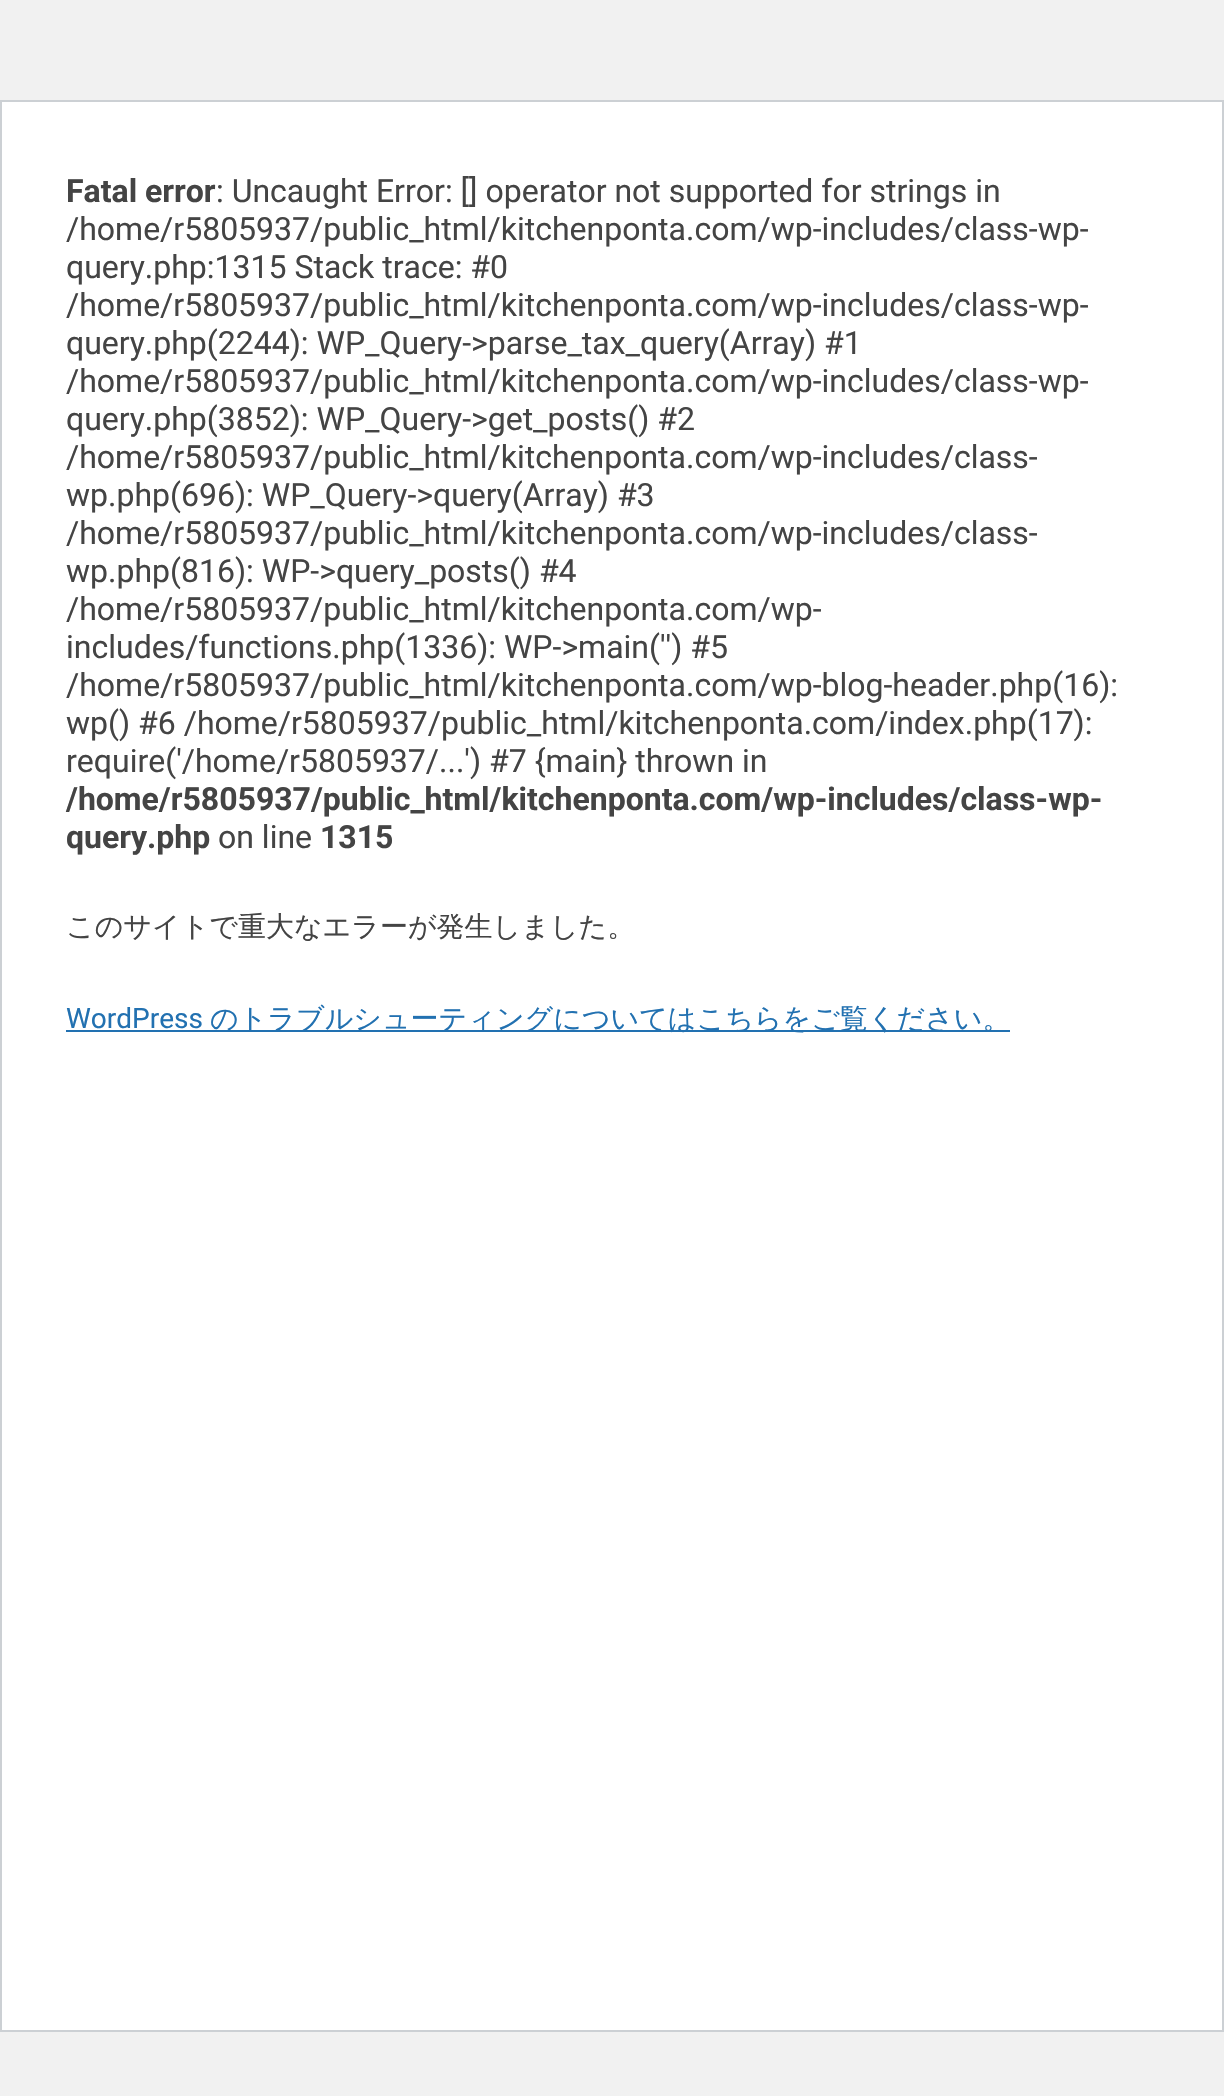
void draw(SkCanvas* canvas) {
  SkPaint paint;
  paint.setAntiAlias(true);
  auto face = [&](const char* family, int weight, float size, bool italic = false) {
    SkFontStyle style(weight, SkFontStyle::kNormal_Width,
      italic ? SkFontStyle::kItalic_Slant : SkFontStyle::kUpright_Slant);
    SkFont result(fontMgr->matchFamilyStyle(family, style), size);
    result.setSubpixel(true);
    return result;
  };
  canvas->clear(0xfff1f1f1);
  paint.setColor(0xffffffff);
  canvas->drawRect(SkRect::MakeXYWH(1, 101, 1222, 1930), paint);
  paint.setStroke(true);
  paint.setStrokeWidth(2);
  paint.setColor(0xffccd0d4);
  canvas->drawRect(SkRect::MakeXYWH(1, 101, 1222, 1930), paint);
  paint.setStroke(false);
  paint.setColor(0xff2271b1);
  canvas->drawRect(SkRect::MakeXYWH(66, 1030, 944, 2), paint);
  auto f0 = face("Roboto", 700, 32);
  paint.setColor(0xff444444);
  canvas->drawString("Fatal error", 66, 202, f0, paint);
  auto f1 = face("Roboto", 400, 32);
  {
    const struct { const char* s; float x, y; } items[] = {
      {": Uncaught Error: [] operator not supported for strings in", 216, 202},
      {"/home/r5805937/public_html/kitchenponta.com/wp-includes/class-wp-", 66, 240},
      {"query.php:1315 Stack trace: #0", 66, 278},
      {"/home/r5805937/public_html/kitchenponta.com/wp-includes/class-wp-", 66, 316},
      {"query.php(2244): WP_Query->parse_tax_query(Array) #1", 66, 354},
      {"/home/r5805937/public_html/kitchenponta.com/wp-includes/class-wp-", 66, 392},
      {"query.php(3852): WP_Query->get_posts() #2", 66, 430},
      {"/home/r5805937/public_html/kitchenponta.com/wp-includes/class-", 66, 468},
      {"wp.php(696): WP_Query->query(Array) #3", 66, 506},
      {"/home/r5805937/public_html/kitchenponta.com/wp-includes/class-", 66, 544},
      {"wp.php(816): WP->query_posts() #4", 66, 582},
      {"/home/r5805937/public_html/kitchenponta.com/wp-", 66, 620},
      {"includes/functions.php(1336): WP->main('') #5", 66, 658},
      {"/home/r5805937/public_html/kitchenponta.com/wp-blog-header.php(16):", 66, 696},
      {"wp() #6 /home/r5805937/public_html/kitchenponta.com/index.php(17):", 66, 734},
      {"require('/home/r5805937/...') #7 {main} thrown in", 66, 772},
    };
    for (auto [s, x, y] : items) {
      canvas->drawString(s, x, y, f1, paint);
    }
  }
  canvas->drawString("/home/r5805937/public_html/kitchenponta.com/wp-includes/class-wp-", 66, 810, f0, paint);
  canvas->drawString("query.php", 66, 848, f0, paint);
  canvas->drawString("on line", 218, 848, f1, paint);
  canvas->drawString("1315", 320, 848, f0, paint);
  auto f2 = face("WenQuanYi Zen Hei", 500, 28);
  canvas->drawString("このサイトで重大なエラーが発生しました。", 66, 936, f2, paint);
  auto f3 = face("Roboto", 400, 28);
  paint.setColor(0xff2271b1);
  canvas->drawString("WordPress", 66, 1028, f3, paint);
  canvas->drawString("のトラブルシューティングについてはこちらをご覧ください。", 210, 1028, f2, paint);
}
